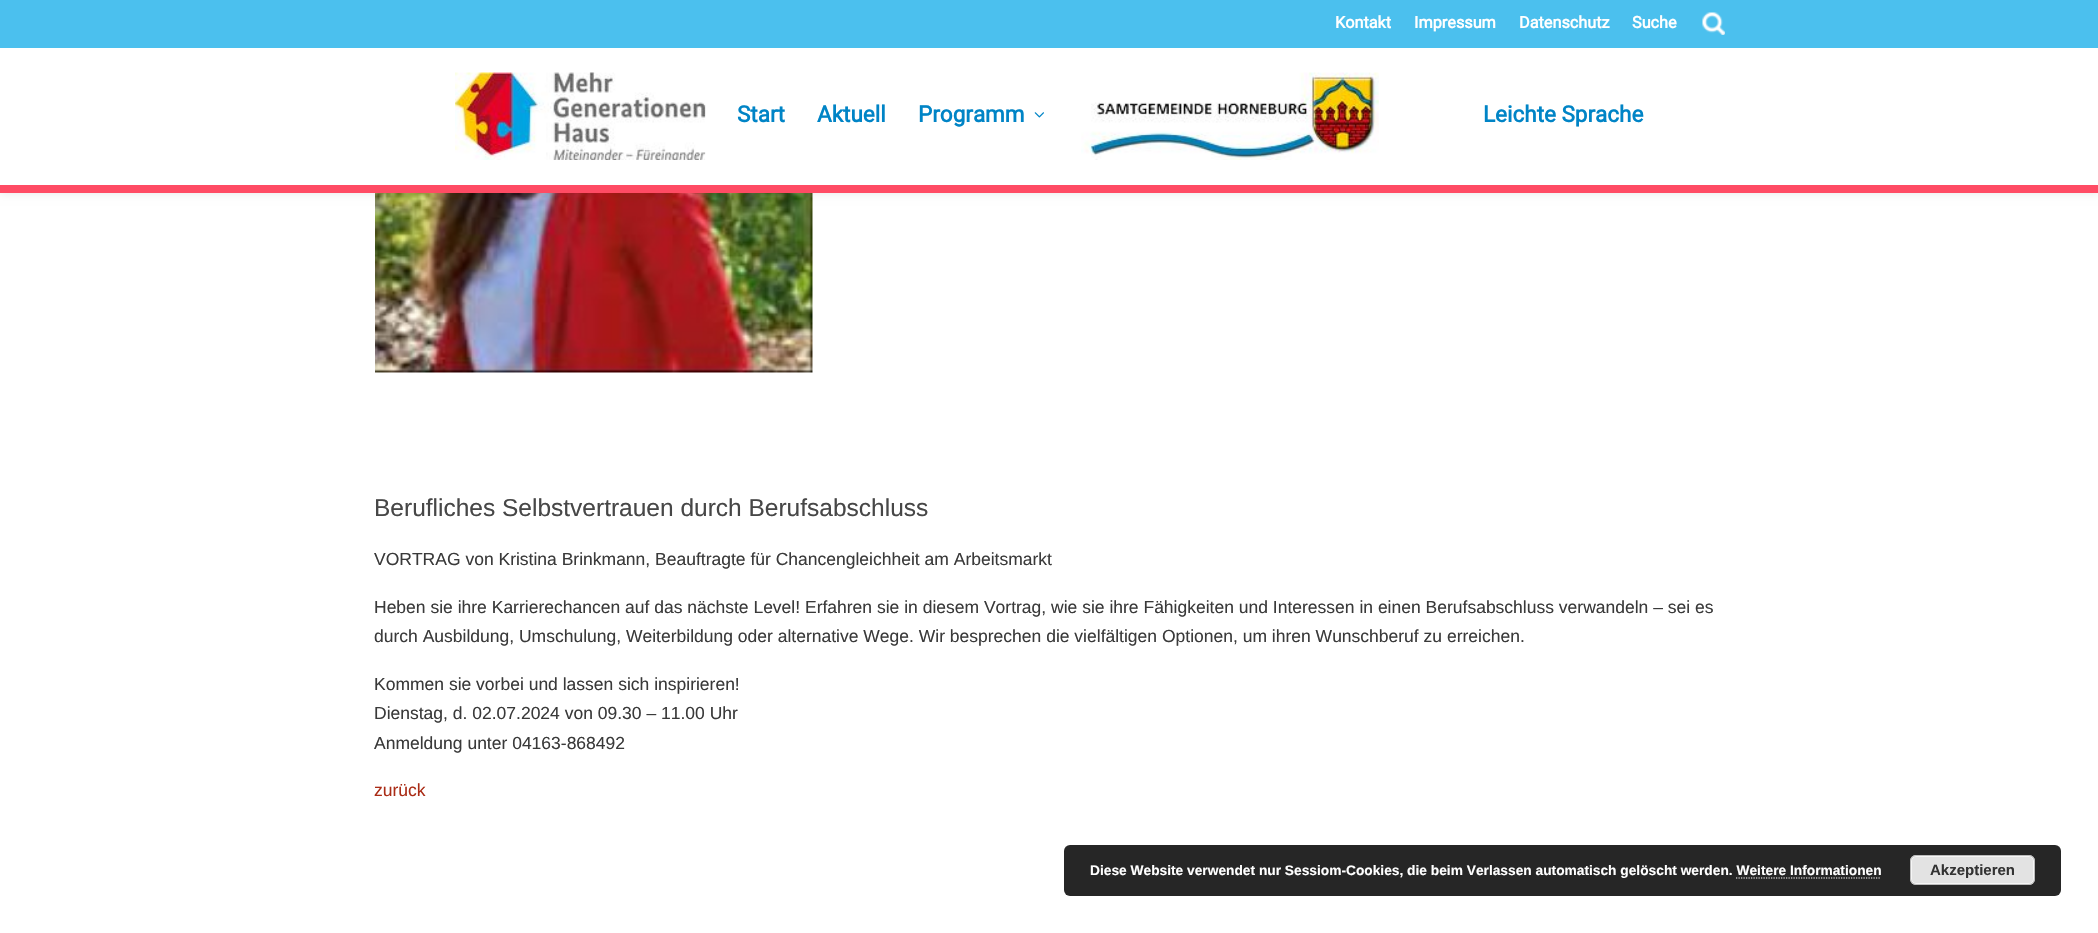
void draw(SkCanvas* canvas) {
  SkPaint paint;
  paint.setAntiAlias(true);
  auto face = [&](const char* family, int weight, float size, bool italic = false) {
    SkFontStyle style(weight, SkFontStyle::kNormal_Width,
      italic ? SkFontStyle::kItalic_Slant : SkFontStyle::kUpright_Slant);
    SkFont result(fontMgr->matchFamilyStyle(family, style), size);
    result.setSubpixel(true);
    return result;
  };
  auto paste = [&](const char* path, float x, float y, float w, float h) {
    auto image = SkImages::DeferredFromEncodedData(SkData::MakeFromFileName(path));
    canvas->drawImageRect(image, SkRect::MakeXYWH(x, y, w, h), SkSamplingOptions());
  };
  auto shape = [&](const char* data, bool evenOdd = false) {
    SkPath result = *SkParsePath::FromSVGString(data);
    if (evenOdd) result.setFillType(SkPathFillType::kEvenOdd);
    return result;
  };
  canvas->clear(0xffffffff);
  paste("img/5.png", 375, 193, 438, 180);
  paint.setColor(0x1a000000);
  paint.setMaskFilter(SkMaskFilter::MakeBlur(kNormal_SkBlurStyle, 4.5f));
  canvas->drawRect(SkRect::MakeXYWH(0, 48, 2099, 145), paint);
  paint.setMaskFilter(nullptr);
  paint.setColor(0xff4bc0ee);
  canvas->drawRect(SkRect::MakeXYWH(0, 0, 2098, 48), paint);
  paste("img/1.png", 1702, 12, 23, 23);
  paint.setColor(0xffffffff);
  canvas->drawRect(SkRect::MakeXYWH(0, 48, 2098, 137), paint);
  paint.setColor(0xffff4b64);
  canvas->drawRect(SkRect::MakeXYWH(0, 185, 2098, 8), paint);
  paste("img/2.png", 455, 72, 251, 88);
  paste("img/3.png", 1034, 112, 10, 6);
  paste("img/4.png", 1081, 72, 298, 88);
  paint.setColor(0xff262626);
  canvas->drawRoundRect(SkRect::MakeXYWH(1064, 845, 997, 51), 6, 6, paint);
  paint.setColor(0xffe3e3e3);
  canvas->drawRoundRect(SkRect::MakeXYWH(1910, 855, 125, 30), 6, 6, paint);
  paint.setStroke(true);
  paint.setStrokeWidth(1);
  paint.setColor(0xfff6f6f6);
  canvas->drawRoundRect(SkRect::MakeXYWH(1911.5f, 856.5f, 122, 27), 4.5f, 4.5f, paint);
  paint.setColor(0xffbbbbbb);
  canvas->drawRoundRect(SkRect::MakeXYWH(1910.5f, 855.5f, 124, 29), 5.5f, 5.5f, paint);
  paint.setStrokeWidth(1.2f);
  paint.setColor(0xffffffff);
  paint.setPathEffect(SkDashPathEffect::Make({{1.25f, 1.25f}}, 0));
  canvas->drawPath(shape("M1736 878H1881"), paint);
  paint.setPathEffect(nullptr);
  auto f0 = face("Roboto", 700, 16.25f);
  paint.setStroke(false);
  {
    const struct { const char* s; float x, y; } items[] = {
      {"Kontakt", 1335, 28},
      {"Impressum", 1414, 28},
      {"Datenschutz", 1519, 28},
      {"Suche", 1632, 28},
    };
    for (auto [s, x, y] : items) {
      canvas->drawString(s, x, y, f0, paint);
    }
  }
  auto f1 = face("Roboto", 700, 22.5f);
  paint.setColor(0xff0084c6);
  {
    const struct { const char* s; float x, y; } items[] = {
      {"Start", 737, 122},
      {"Aktuell", 817, 122},
      {"Programm", 918, 122},
      {"Leichte Sprache", 1483, 122},
    };
    for (auto [s, x, y] : items) {
      canvas->drawString(s, x, y, f1, paint);
    }
  }
  auto f2 = face("Liberation Sans", 400, 24.5f);
  paint.setColor(0xff474747);
  canvas->drawString("Berufliches Selbstvertrauen durch Berufsabschluss", 374, 516, f2, paint);
  auto f3 = face("Liberation Sans", 400, 17.5f);
  paint.setColor(0xff3a3a3a);
  {
    const struct { const char* s; float x, y; } items[] = {
      {"VORTRAG von Kristina Brinkmann, Beauftragte für Chancengleichheit am Arbeitsmarkt", 374, 565},
      {"Heben sie ihre Karrierechancen auf das nächste Level! Erfahren sie in diesem Vortrag, wie sie ihre Fähigkeiten und Interessen in einen Berufsabschluss verwandeln – sei es", 374, 613},
      {"durch Ausbildung, Umschulung, Weiterbildung oder alternative Wege. Wir besprechen die vielfältigen Optionen, um ihren Wunschberuf zu erreichen.", 374, 642},
      {"Kommen sie vorbei und lassen sich inspirieren!", 374, 690},
      {"Dienstag, d. 02.07.2024 von 09.30 – 11.00 Uhr", 374, 719},
      {"Anmeldung unter 04163-868492", 374, 749},
    };
    for (auto [s, x, y] : items) {
      canvas->drawString(s, x, y, f3, paint);
    }
  }
  paint.setColor(0xffaa2c16);
  canvas->drawString("zurück", 374, 796, f3, paint);
  auto f4 = face("Liberation Sans", 700, 13.75f);
  paint.setColor(0xffffffff);
  canvas->drawString("Diese Website verwendet nur Sessiom-Cookies, die beim Verlassen automatisch gelöscht werden. Weitere Informationen", 1090, 875, f4, paint);
  auto f5 = face("Liberation Sans", 700, 15);
  paint.setColor(0xff333333);
  canvas->drawString("Akzeptieren", 1930, 875, f5, paint);
}
